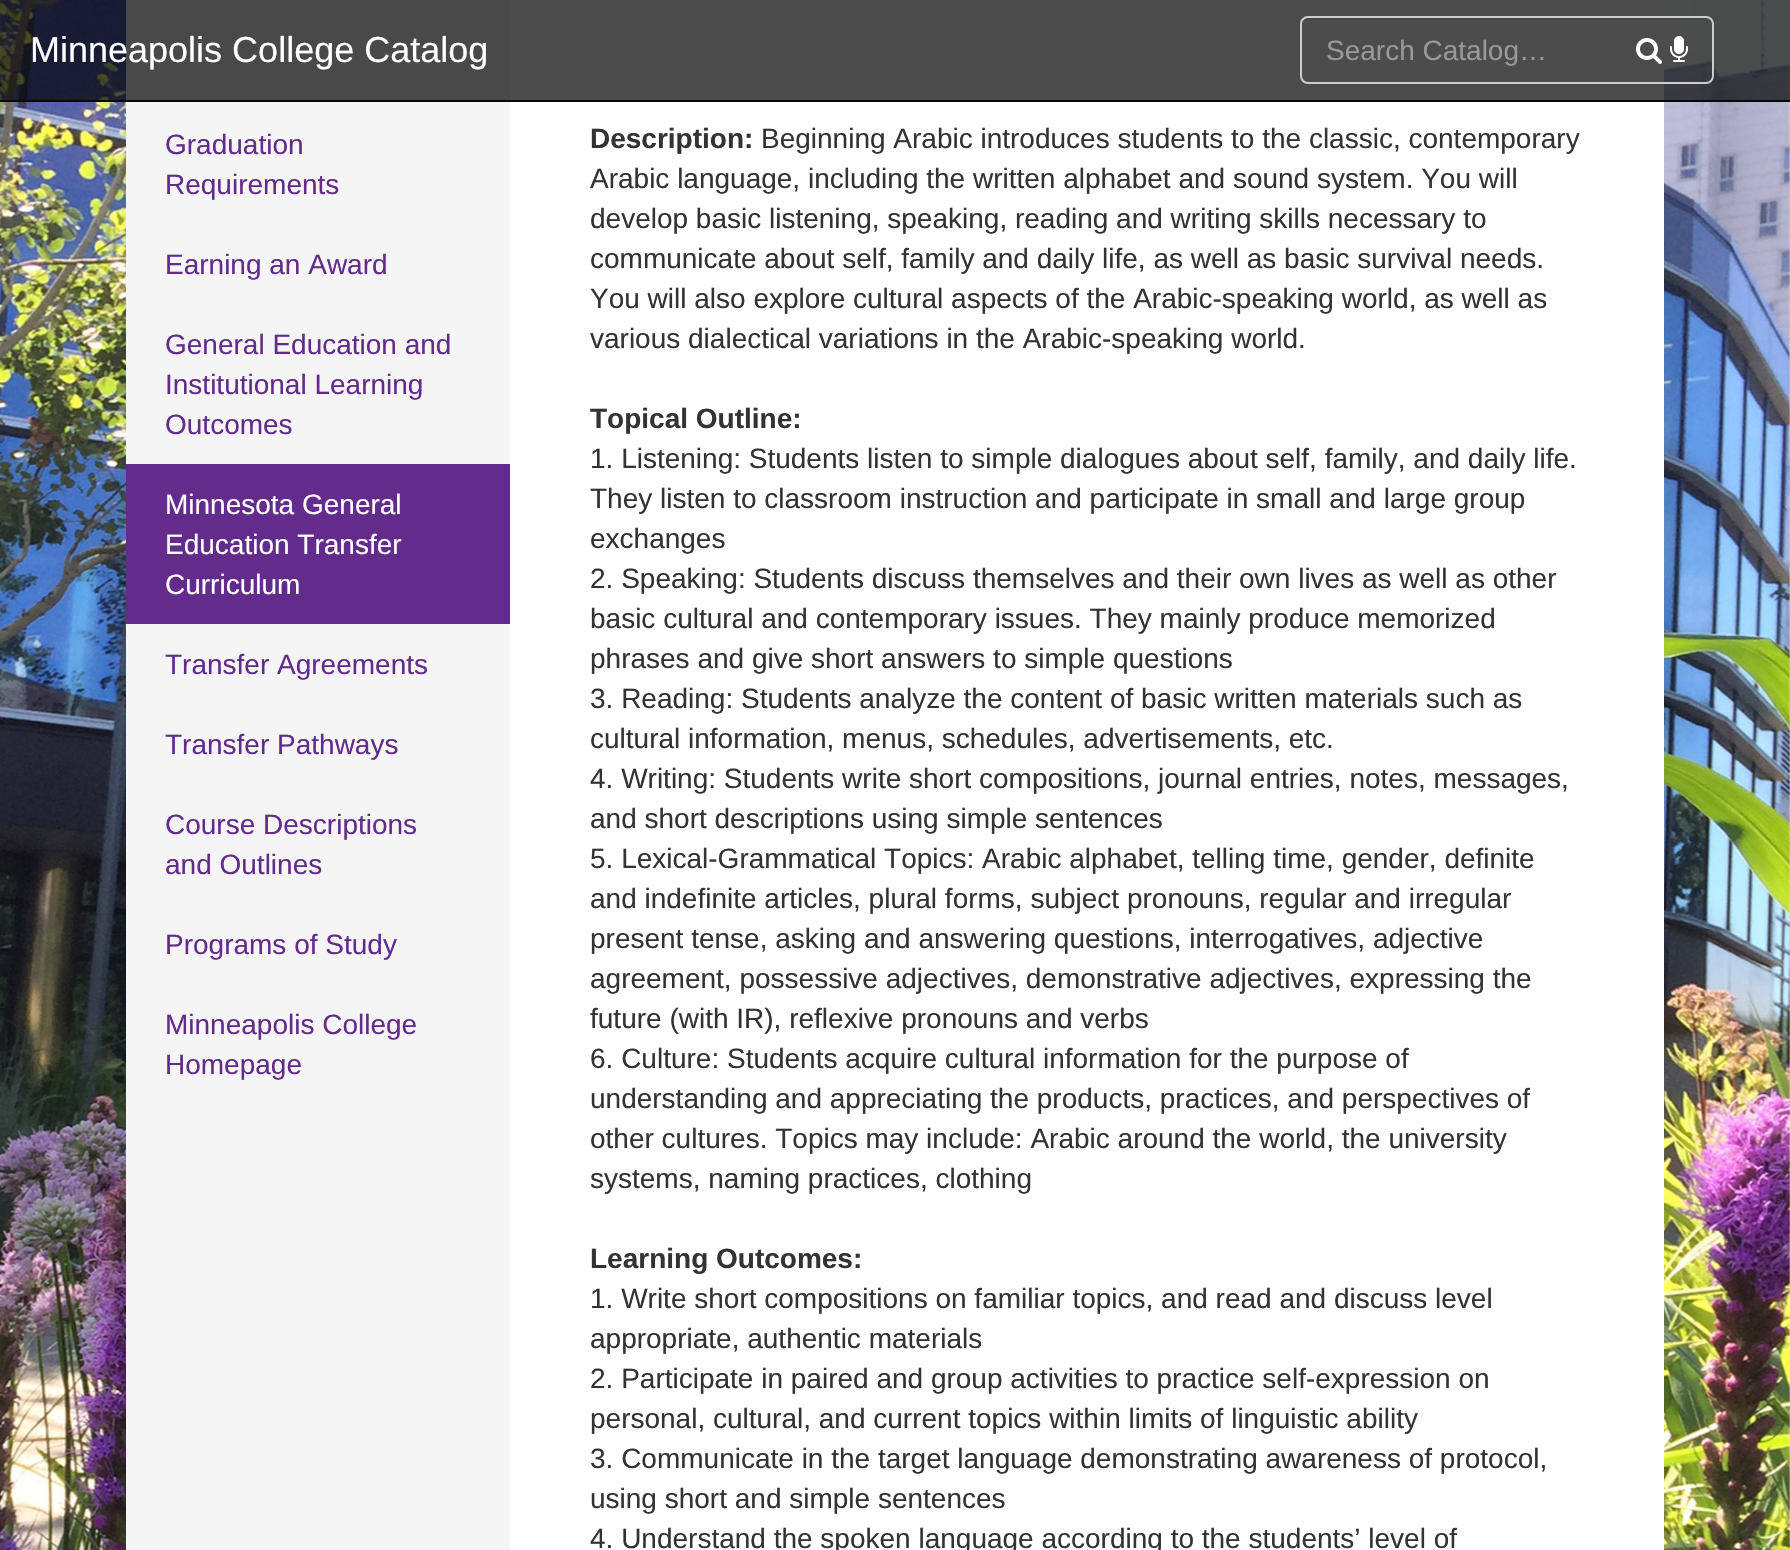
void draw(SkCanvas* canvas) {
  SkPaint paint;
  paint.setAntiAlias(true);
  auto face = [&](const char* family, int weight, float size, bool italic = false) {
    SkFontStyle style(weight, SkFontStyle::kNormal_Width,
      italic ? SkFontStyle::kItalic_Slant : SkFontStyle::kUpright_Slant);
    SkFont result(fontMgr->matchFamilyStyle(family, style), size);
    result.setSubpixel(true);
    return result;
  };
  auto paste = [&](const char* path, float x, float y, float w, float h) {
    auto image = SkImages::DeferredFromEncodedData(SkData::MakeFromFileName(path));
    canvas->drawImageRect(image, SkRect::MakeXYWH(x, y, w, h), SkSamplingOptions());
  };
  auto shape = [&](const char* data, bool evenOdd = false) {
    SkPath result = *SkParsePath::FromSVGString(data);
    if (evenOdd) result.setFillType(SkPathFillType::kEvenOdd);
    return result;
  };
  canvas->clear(0xffffffff);
  paste("img/1.png", 0, 0, 1790, 1550);
  {
    const struct { float x, y, w, h; SkColor color; } items[] = {
      {126, 0, 384, 1550, 0xfff5f5f5},
      {510, 0, 1154, 1550, 0xffffffff},
      {0, 0, 1790, 100, 0xb3000000},
      {0, 100, 1790, 2, 0xff080808},
    };
    for (auto [x, y, w, h, color] : items) {
      paint.setColor(color);
      canvas->drawRect(SkRect::MakeXYWH(x, y, w, h), paint);
    }
  }
  paint.setColor(0xff474747);
  canvas->drawPath(shape("M1308 20H1706C1709 20 1712 23 1712 26C1712 22 1711 18 1706 18H1308C1303 18 1302 22 1302 26C1302 23 1305 20 1308 20Z"), paint);
  paint.setStroke(true);
  paint.setStrokeWidth(2);
  paint.setColor(0xffcccccc);
  canvas->drawRoundRect(SkRect::MakeXYWH(1301, 17, 412, 66), 7, 7, paint);
  paste("img/2.png", 1636, 38, 26, 26);
  paste("img/3.png", 1670, 36, 18, 26);
  paint.setStroke(false);
  paint.setColor(0xff632c8c);
  canvas->drawRect(SkRect::MakeXYWH(126, 464, 384, 160), paint);
  auto f0 = face("Liberation Sans", 400, 36);
  paint.setColor(0xffffffff);
  canvas->drawString("Minneapolis College Catalog", 30, 62, f0, paint);
  auto f1 = face("Liberation Sans", 400, 28);
  paint.setColor(0xff999999);
  canvas->drawString("Search Catalog…", 1326, 60, f1, paint);
  paint.setColor(0xff632c8c);
  {
    const struct { const char* s; float x, y; } items[] = {
      {"Graduation", 165, 154},
      {"Requirements", 165, 194},
      {"Earning an Award", 165, 274},
      {"General Education and", 165, 354},
      {"Institutional Learning", 165, 394},
      {"Outcomes", 165, 434},
    };
    for (auto [s, x, y] : items) {
      canvas->drawString(s, x, y, f1, paint);
    }
  }
  paint.setColor(0xffffffff);
  {
    const struct { const char* s; float x, y; } items[] = {
      {"Minnesota General", 165, 514},
      {"Education Transfer", 165, 554},
      {"Curriculum", 165, 594},
    };
    for (auto [s, x, y] : items) {
      canvas->drawString(s, x, y, f1, paint);
    }
  }
  paint.setColor(0xff632c8c);
  {
    const struct { const char* s; float x, y; } items[] = {
      {"Transfer Agreements", 165, 674},
      {"Transfer Pathways", 165, 754},
      {"Course Descriptions", 165, 834},
      {"and Outlines", 165, 874},
      {"Programs of Study", 165, 954},
      {"Minneapolis College", 165, 1034},
      {"Homepage", 165, 1074},
    };
    for (auto [s, x, y] : items) {
      canvas->drawString(s, x, y, f1, paint);
    }
  }
  auto f2 = face("Liberation Sans", 700, 28);
  paint.setColor(0xff333333);
  canvas->drawString("Description:", 590, 148, f2, paint);
  {
    const struct { const char* s; float x, y; } items[] = {
      {"Beginning Arabic introduces students to the classic, contemporary", 761, 148},
      {"Arabic language, including the written alphabet and sound system. You will", 590, 188},
      {"develop basic listening, speaking, reading and writing skills necessary to", 590, 228},
      {"communicate about self, family and daily life, as well as basic survival needs.", 590, 268},
      {"You will also explore cultural aspects of the Arabic-speaking world, as well as", 590, 308},
      {"various dialectical variations in the Arabic-speaking world.", 590, 348},
    };
    for (auto [s, x, y] : items) {
      canvas->drawString(s, x, y, f1, paint);
    }
  }
  canvas->drawString("Topical Outline:", 590, 428, f2, paint);
  {
    const struct { const char* s; float x, y; } items[] = {
      {"1. Listening: Students listen to simple dialogues about self, family, and daily life.", 590, 468},
      {"They listen to classroom instruction and participate in small and large group", 590, 508},
      {"exchanges", 590, 548},
      {"2. Speaking: Students discuss themselves and their own lives as well as other", 590, 588},
      {"basic cultural and contemporary issues. They mainly produce memorized", 590, 628},
      {"phrases and give short answers to simple questions", 590, 668},
      {"3. Reading: Students analyze the content of basic written materials such as", 590, 708},
      {"cultural information, menus, schedules, advertisements, etc.", 590, 748},
      {"4. Writing: Students write short compositions, journal entries, notes, messages,", 590, 788},
      {"and short descriptions using simple sentences", 590, 828},
      {"5. Lexical-Grammatical Topics: Arabic alphabet, telling time, gender, definite", 590, 868},
      {"and indefinite articles, plural forms, subject pronouns, regular and irregular", 590, 908},
      {"present tense, asking and answering questions, interrogatives, adjective", 590, 948},
      {"agreement, possessive adjectives, demonstrative adjectives, expressing the", 590, 988},
      {"future (with IR), reflexive pronouns and verbs", 590, 1028},
      {"6. Culture: Students acquire cultural information for the purpose of", 590, 1068},
      {"understanding and appreciating the products, practices, and perspectives of", 590, 1108},
      {"other cultures. Topics may include: Arabic around the world, the university", 590, 1148},
      {"systems, naming practices, clothing", 590, 1188},
    };
    for (auto [s, x, y] : items) {
      canvas->drawString(s, x, y, f1, paint);
    }
  }
  canvas->drawString("Learning Outcomes:", 590, 1268, f2, paint);
  {
    const struct { const char* s; float x, y; } items[] = {
      {"1. Write short compositions on familiar topics, and read and discuss level", 590, 1308},
      {"appropriate, authentic materials", 590, 1348},
      {"2. Participate in paired and group activities to practice self-expression on", 590, 1388},
      {"personal, cultural, and current topics within limits of linguistic ability", 590, 1428},
      {"3. Communicate in the target language demonstrating awareness of protocol,", 590, 1468},
      {"using short and simple sentences", 590, 1508},
      {"4. Understand the spoken language according to the students’ level of", 590, 1548},
    };
    for (auto [s, x, y] : items) {
      canvas->drawString(s, x, y, f1, paint);
    }
  }
}
